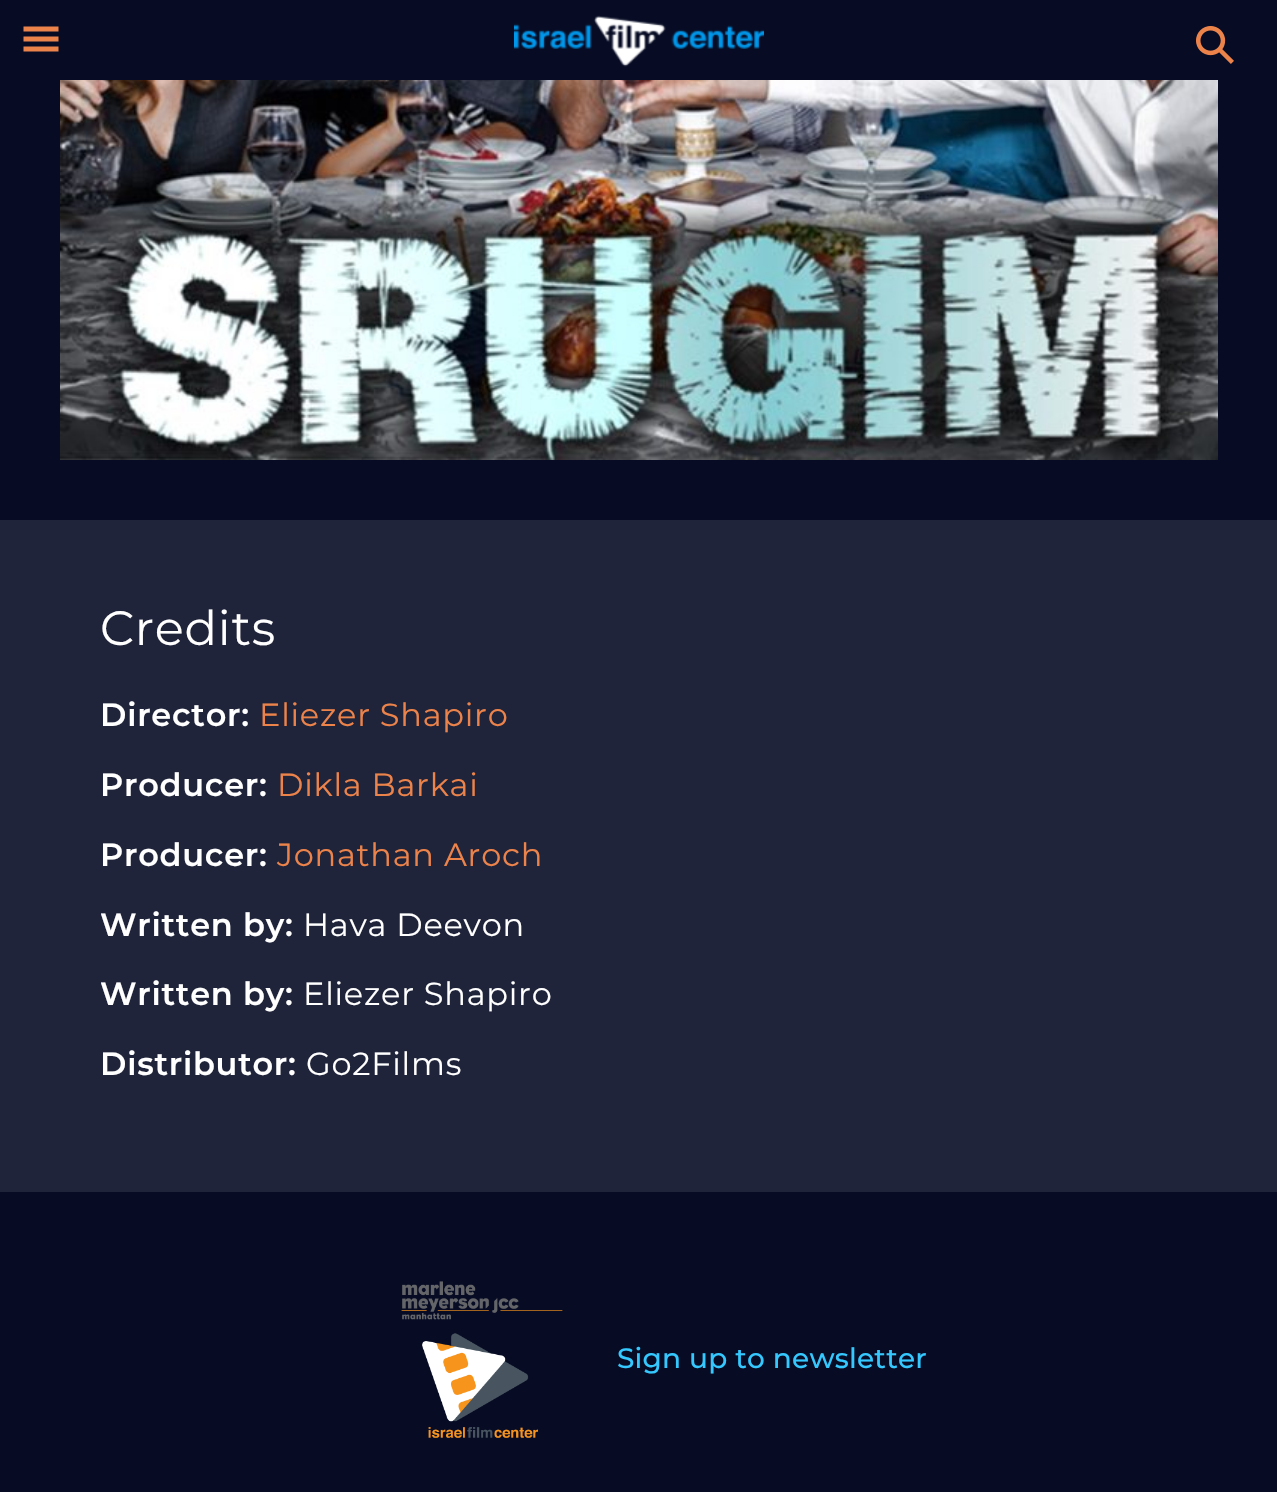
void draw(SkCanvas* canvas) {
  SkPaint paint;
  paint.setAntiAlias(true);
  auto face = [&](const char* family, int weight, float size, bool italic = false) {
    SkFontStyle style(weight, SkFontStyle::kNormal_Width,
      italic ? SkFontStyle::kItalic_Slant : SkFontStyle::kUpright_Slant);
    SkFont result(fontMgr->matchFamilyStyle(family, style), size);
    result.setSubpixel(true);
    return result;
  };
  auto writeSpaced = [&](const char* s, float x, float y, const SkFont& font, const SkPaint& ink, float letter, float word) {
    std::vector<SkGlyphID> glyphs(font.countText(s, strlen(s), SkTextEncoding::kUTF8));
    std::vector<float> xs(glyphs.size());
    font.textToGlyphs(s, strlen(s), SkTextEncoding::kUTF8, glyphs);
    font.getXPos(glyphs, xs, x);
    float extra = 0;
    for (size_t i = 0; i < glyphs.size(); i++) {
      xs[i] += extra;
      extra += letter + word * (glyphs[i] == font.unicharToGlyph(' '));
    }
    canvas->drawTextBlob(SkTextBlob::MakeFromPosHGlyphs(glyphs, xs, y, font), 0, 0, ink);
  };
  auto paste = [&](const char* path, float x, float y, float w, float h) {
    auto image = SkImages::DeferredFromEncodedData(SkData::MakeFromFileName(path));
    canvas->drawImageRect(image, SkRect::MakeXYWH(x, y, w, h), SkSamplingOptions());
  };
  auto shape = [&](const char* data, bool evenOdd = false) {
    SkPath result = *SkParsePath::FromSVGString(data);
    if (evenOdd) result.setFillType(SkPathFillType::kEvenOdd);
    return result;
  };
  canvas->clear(0xff070c24);
  paint.setColor(0xffec834b);
  canvas->drawPath(shape("M23.5 51.5H58.5V46.5H23.5ZM23.5 26.5V31.5H58.5V26.5ZM23.5 41.5H58.5V36.5H23.5Z"), paint);
  paste("img/1.png", 514, 15, 250, 52);
  paste("img/2.png", 1196, 26, 38, 38);
  paste("img/3.png", 60, 80, 1158, 380);
  paint.setColor(0xff20243a);
  canvas->drawRect(SkRect::MakeXYWH(0, 520, 1277, 672), paint);
  paste("img/4.png", 401, 1281, 162, 157);
  auto f0 = face("Montserrat", 400, 48);
  paint.setColor(0xffffffff);
  writeSpaced("Credits", 100, 645, f0, paint, 0.75f, 0);
  auto f1 = face("Montserrat", 600, 32);
  writeSpaced("Director:", 100, 726, f1, paint, 0.75f, 0);
  auto f2 = face("Montserrat", 400, 32);
  paint.setColor(0xffec834b);
  writeSpaced("Eliezer Shapiro", 259, 726, f2, paint, 0.75f, 0);
  paint.setColor(0xffffffff);
  writeSpaced("Producer:", 100, 796, f1, paint, 0.75f, 0);
  paint.setColor(0xffec834b);
  writeSpaced("Dikla Barkai", 277, 796, f2, paint, 0.75f, 0);
  paint.setColor(0xffffffff);
  writeSpaced("Producer:", 100, 866, f1, paint, 0.75f, 0);
  paint.setColor(0xffec834b);
  writeSpaced("Jonathan Aroch", 277, 866, f2, paint, 0.75f, 0);
  paint.setColor(0xffffffff);
  writeSpaced("Written by:", 100, 936, f1, paint, 0.75f, 0);
  writeSpaced("Hava Deevon", 303, 936, f2, paint, 0.75f, 0);
  writeSpaced("Written by:", 100, 1005, f1, paint, 0.75f, 0);
  writeSpaced("Eliezer Shapiro", 303, 1005, f2, paint, 0.75f, 0);
  writeSpaced("Distributor:", 100, 1075, f1, paint, 0.75f, 0);
  writeSpaced("Go2Films", 306, 1075, f2, paint, 0.75f, 0);
  auto f3 = face("Montserrat", 500, 28);
  paint.setColor(0xff34c8ff);
  writeSpaced("Sign up to newsletter", 617, 1368, f3, paint, 0.2f, 0);
}
